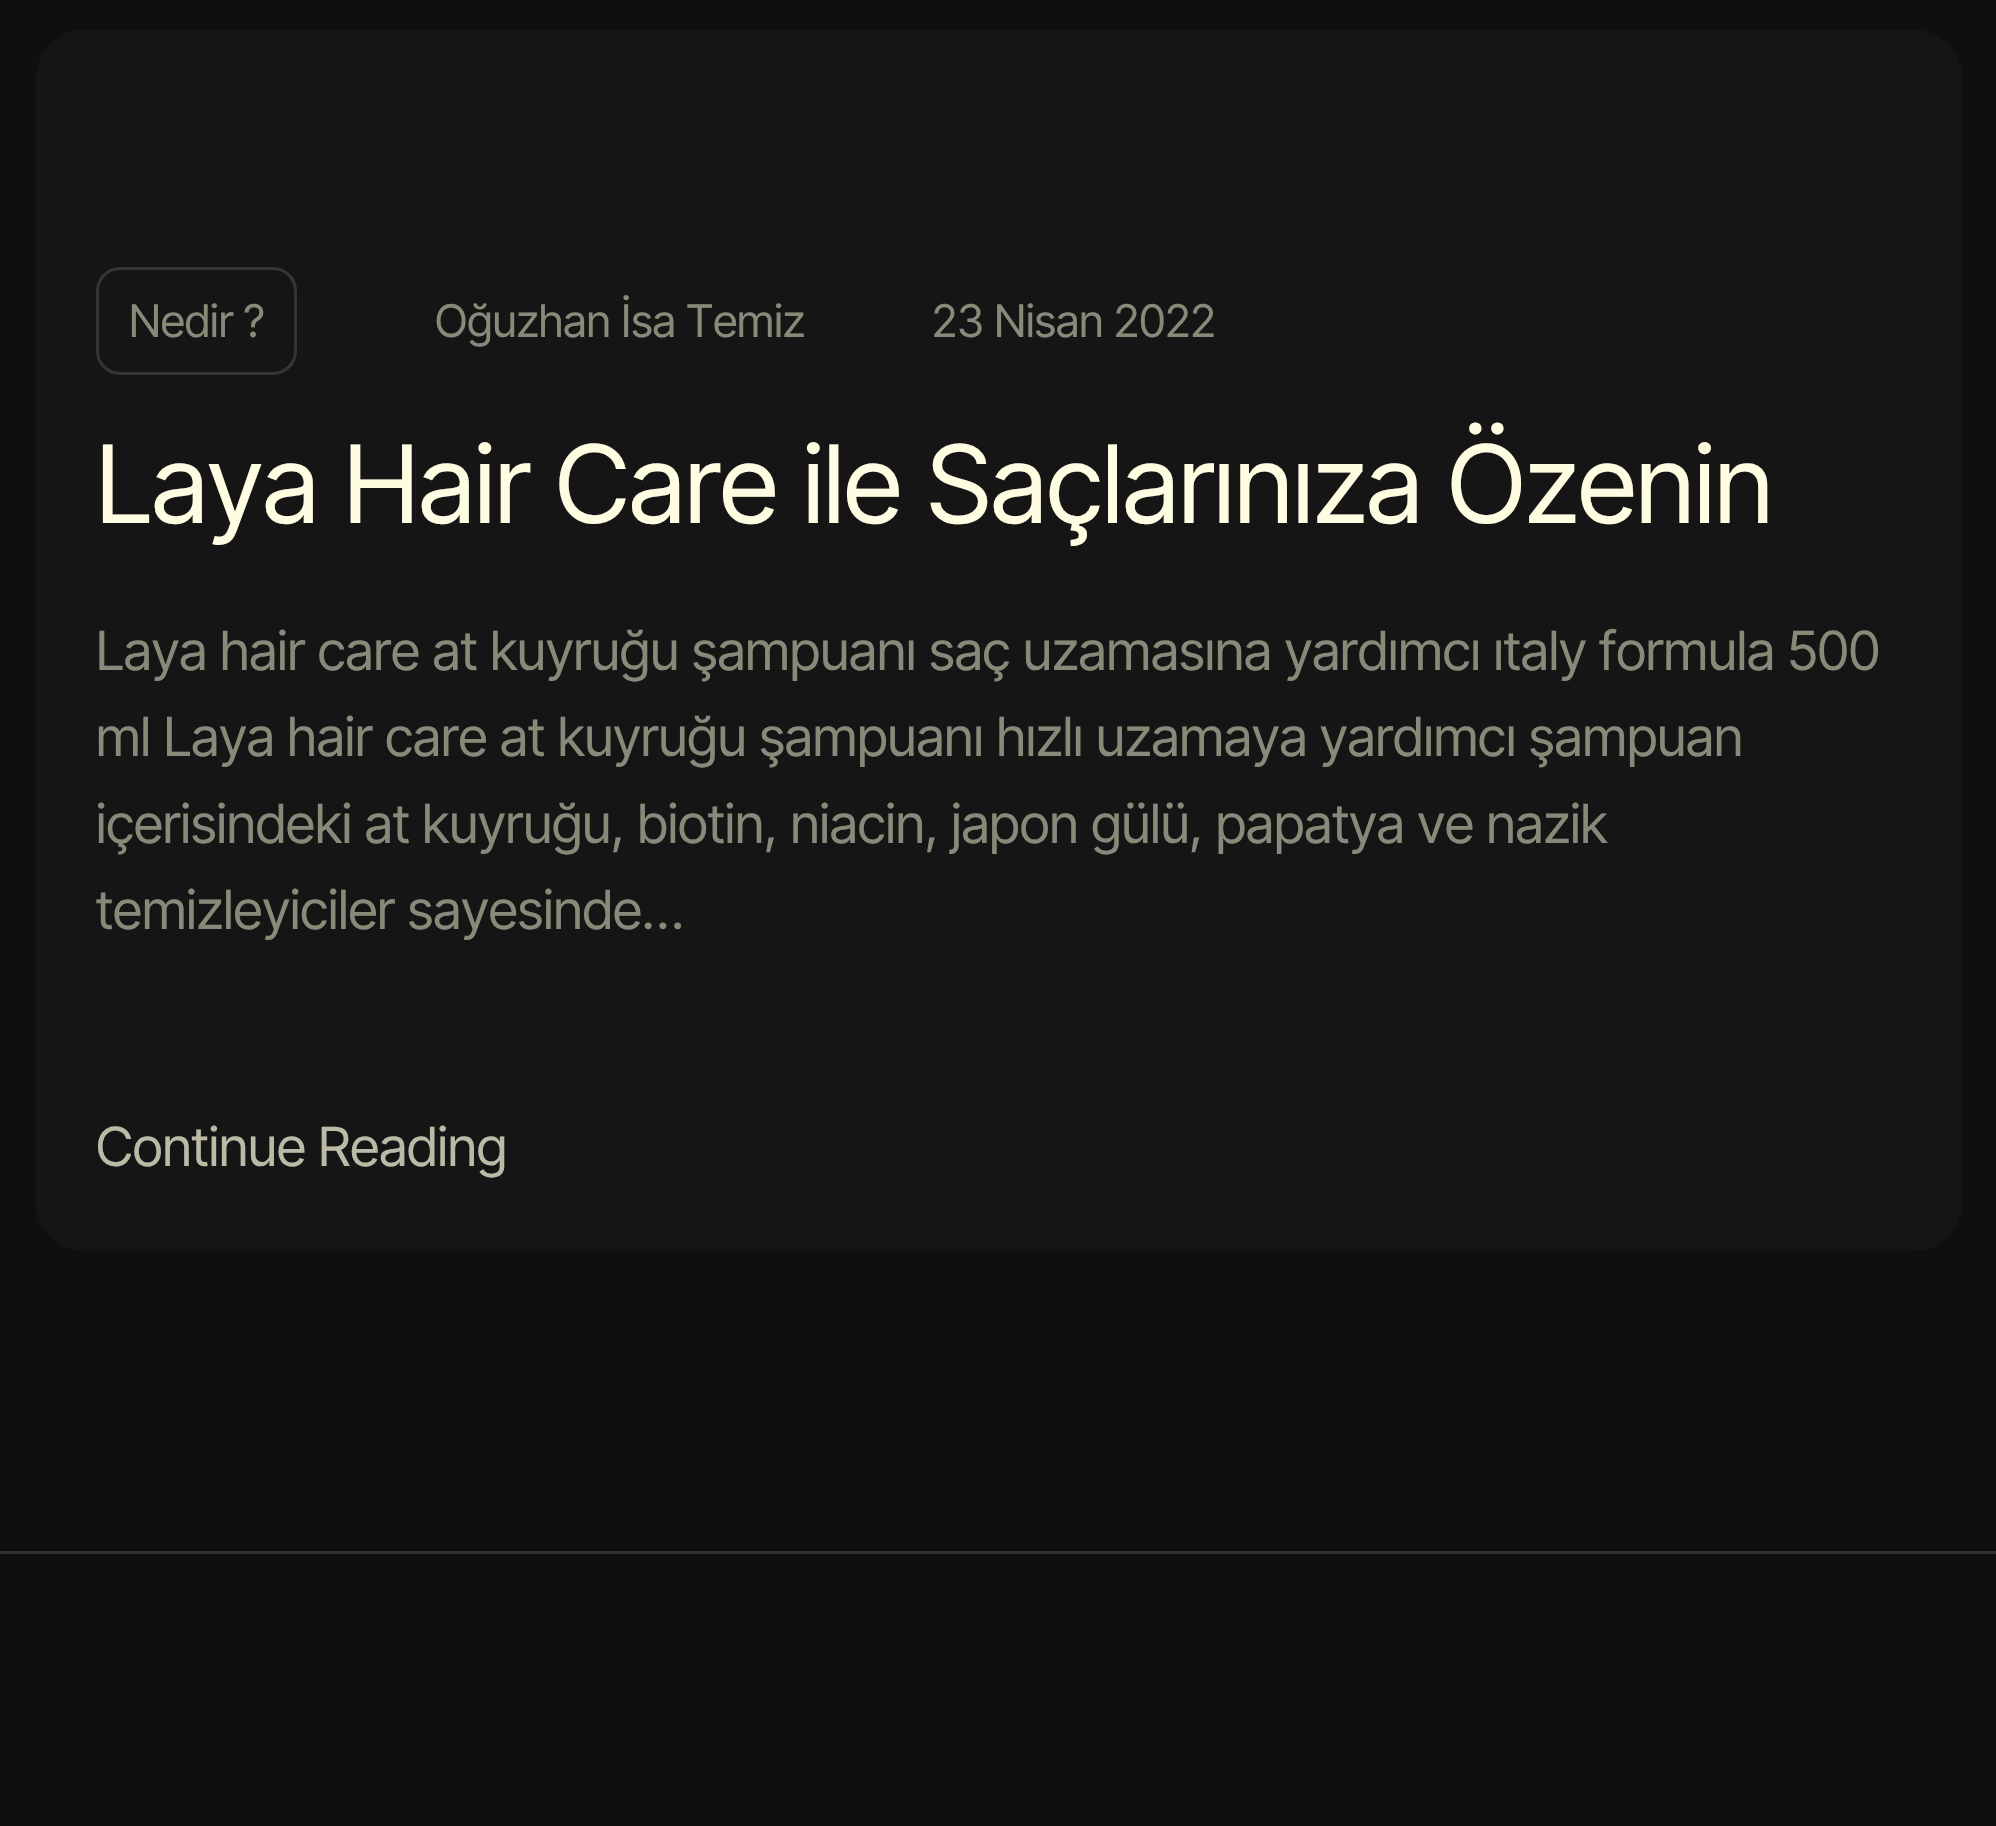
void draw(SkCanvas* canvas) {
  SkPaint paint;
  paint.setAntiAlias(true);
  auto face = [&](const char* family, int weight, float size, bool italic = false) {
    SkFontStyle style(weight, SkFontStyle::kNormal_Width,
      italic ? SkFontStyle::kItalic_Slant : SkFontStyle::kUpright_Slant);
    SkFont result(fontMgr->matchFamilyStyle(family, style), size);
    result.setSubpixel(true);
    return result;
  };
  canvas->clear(0xff0e0f0f);
  paint.setColor(0xff141514);
  canvas->drawRoundRect(SkRect::MakeXYWH(36, 30, 1926, 1221), 48, 48, paint);
  paint.setStroke(true);
  paint.setStrokeWidth(3);
  paint.setColor(0xff353631);
  canvas->drawRoundRect(SkRect::MakeXYWH(97.5f, 268.5f, 198, 105), 22.5f, 22.5f, paint);
  paint.setStroke(false);
  paint.setColor(0xff31312d);
  canvas->drawRect(SkRect::MakeXYWH(0, 1551, 1996, 3), paint);
  auto f0 = face("Inter Tight", 400, 45);
  paint.setColor(0xff89897a);
  {
    const struct { const char* s; float x, y; } items[] = {
      {"Nedir ?", 129, 337},
      {"Oğuzhan İsa Temiz", 435, 337},
      {"23 Nisan 2022", 932, 337},
    };
    for (auto [s, x, y] : items) {
      canvas->drawString(s, x, y, f0, paint);
    }
  }
  auto f1 = face("Inter Tight", 400, 108);
  paint.setColor(0xfffefce1);
  canvas->drawString("Laya Hair Care ile Saçlarınıza Özenin", 96, 523, f1, paint);
  auto f2 = face("Inter Tight", 400, 54);
  paint.setColor(0xff89897a);
  {
    const struct { const char* s; float x, y; } items[] = {
      {"Laya hair care at kuyruğu şampuanı saç uzamasına yardımcı ıtaly formula 500", 96, 670},
      {"ml Laya hair care at kuyruğu şampuanı hızlı uzamaya yardımcı şampuan", 96, 756},
      {"içerisindeki at kuyruğu, biotin, niacin, japon gülü, papatya ve nazik", 96, 843},
      {"temizleyiciler sayesinde…", 96, 929},
    };
    for (auto [s, x, y] : items) {
      canvas->drawString(s, x, y, f2, paint);
    }
  }
  paint.setColor(0xffbbbaa6);
  canvas->drawString("Continue Reading", 96, 1166, f2, paint);
}
